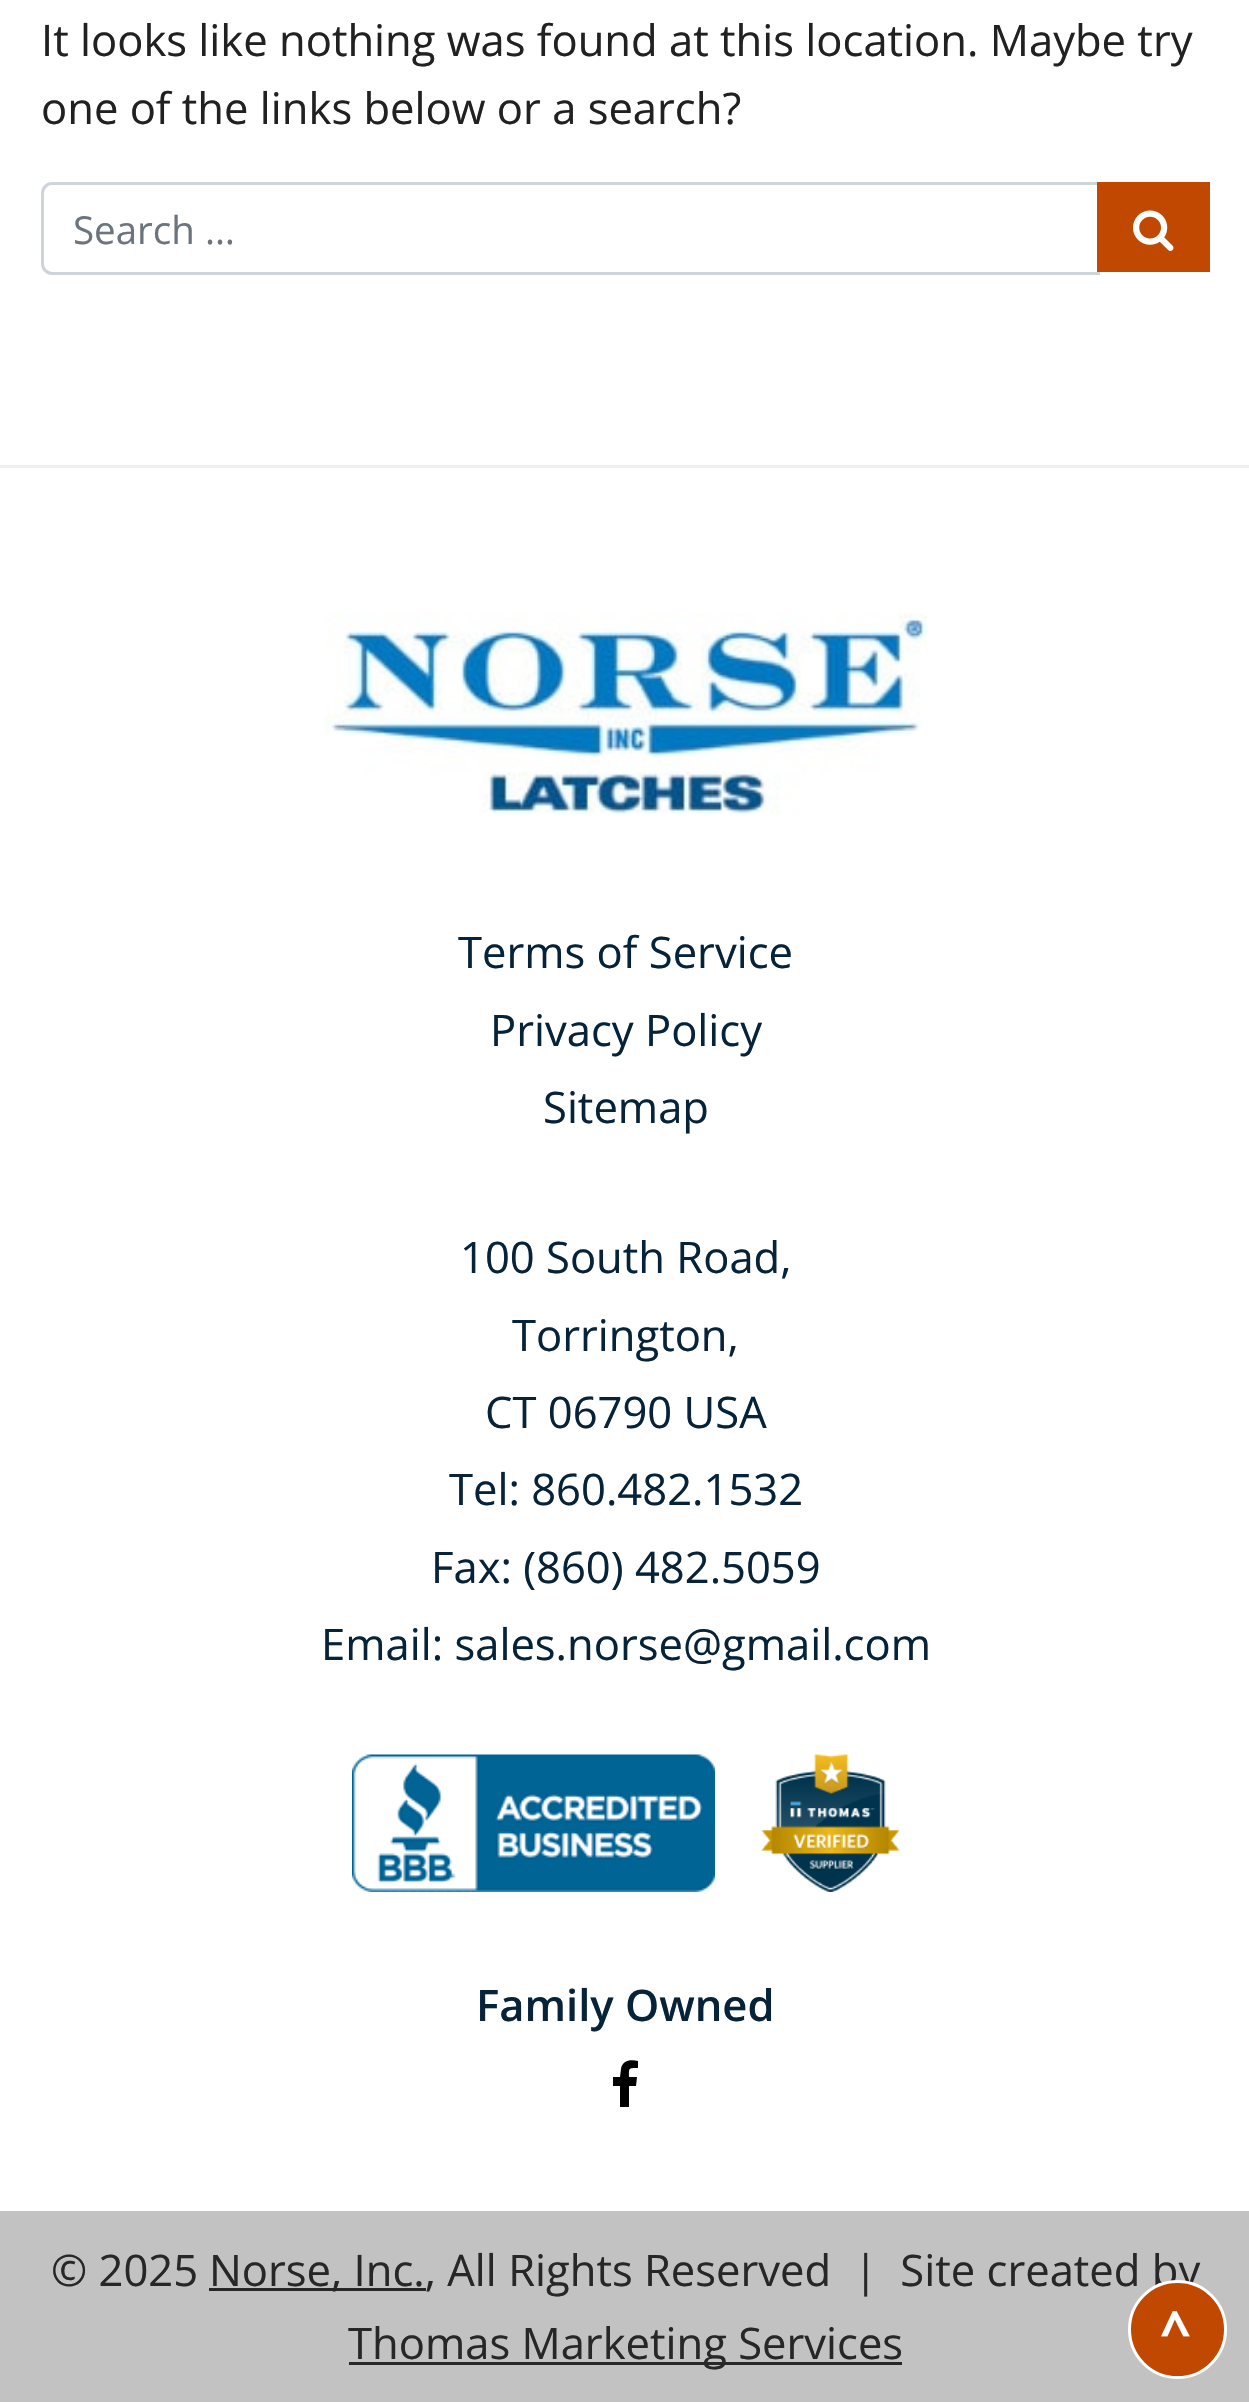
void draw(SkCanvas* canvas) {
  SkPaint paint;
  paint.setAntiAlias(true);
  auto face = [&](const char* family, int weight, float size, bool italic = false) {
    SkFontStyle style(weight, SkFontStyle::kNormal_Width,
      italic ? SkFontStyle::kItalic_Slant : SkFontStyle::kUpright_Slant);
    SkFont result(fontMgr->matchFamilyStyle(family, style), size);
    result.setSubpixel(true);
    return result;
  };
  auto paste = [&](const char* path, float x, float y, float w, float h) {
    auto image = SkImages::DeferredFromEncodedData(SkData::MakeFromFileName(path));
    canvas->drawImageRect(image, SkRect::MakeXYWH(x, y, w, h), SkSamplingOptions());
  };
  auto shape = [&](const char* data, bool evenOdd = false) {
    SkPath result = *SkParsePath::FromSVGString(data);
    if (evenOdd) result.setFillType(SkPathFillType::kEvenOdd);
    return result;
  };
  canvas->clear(0xffffffff);
  paint.setStroke(true);
  paint.setStrokeWidth(3);
  paint.setColor(0xffced4da);
  canvas->drawPath(shape("M52 183.5H1098.5V273.5H52C47 273.5 42.5 269 42.5 264V193C42.5 188 47 183.5 52 183.5Z"), paint);
  paint.setStroke(false);
  paint.setColor(0xffc14800);
  canvas->drawRect(SkRect::MakeXYWH(1097, 182, 113, 90), paint);
  paste("img/1.png", 1133, 210, 41, 41);
  paint.setColor(0xffefefef);
  canvas->drawRect(SkRect::MakeXYWH(0, 465, 1249, 3), paint);
  paste("img/2.png", 324, 613, 603, 202);
  paste("img/3.png", 352, 1754, 363, 138);
  paste("img/4.png", 761, 1754, 139, 138);
  paint.setColor(0xff000000);
  canvas->drawPath(shape("M638 2061V2068C628 2068 629 2068 629 2077H637L636 2086H629V2107H620V2086H613V2077H620L621 2069C622 2060 631 2059 638 2061Z"), paint);
  {
    const struct { float x, y, w, h; SkColor color; } items[] = {
      {0, 2211, 1249, 191, 0xffc2c2c2},
      {209, 2288, 217, 3, 0xff272727},
      {349, 2362, 553, 3, 0xff272727},
    };
    for (auto [x, y, w, h, color] : items) {
      paint.setColor(color);
      canvas->drawRect(SkRect::MakeXYWH(x, y, w, h), paint);
    }
  }
  auto f0 = face("Open Sans", 400, 43.55f);
  paint.setColor(0xff212121);
  canvas->drawString("It looks like nothing was found at this location. Maybe try", 41, 56, f0, paint);
  canvas->drawString("one of the links below or a search?", 41, 124, f0, paint);
  auto f1 = face("Open Sans", 400, 38.5f);
  paint.setColor(0xff6c757d);
  canvas->drawString("Search …", 73, 244, f1, paint);
  paint.setColor(0xff072339);
  {
    const struct { const char* s; float x, y; } items[] = {
      {"Terms of Service", 458, 968},
      {"Privacy Policy", 490, 1046},
      {"Sitemap", 543, 1123},
      {"100 South Road,", 460, 1273},
      {"Torrington,", 512, 1351},
      {"CT 06790 USA", 485, 1428},
      {"Tel: 860.482.1532", 449, 1505},
      {"Fax: (860) 482.5059", 431, 1583},
      {"Email: sales.norse@gmail.com", 321, 1660},
    };
    for (auto [s, x, y] : items) {
      canvas->drawString(s, x, y, f0, paint);
    }
  }
  auto f2 = face("Open Sans", 600, 43.55f);
  canvas->drawString("Family Owned", 476, 2021, f2, paint);
  paint.setColor(0xff272727);
  {
    const struct { const char* s; float x, y; } items[] = {
      {"© 2025", 51, 2286},
      {"Norse, Inc., All Rights Reserved  |  Site created by", 209, 2286},
      {"Thomas Marketing Services", 348, 2359},
    };
    for (auto [s, x, y] : items) {
      canvas->drawString(s, x, y, f0, paint);
    }
  }
  paint.setColor(0xffc14800);
  canvas->drawCircle(1177.5f, 2329.5f, 48, paint);
  paint.setStroke(true);
  paint.setColor(0xffffffff);
  canvas->drawCircle(1177.5f, 2329.5f, 48, paint);
  auto f3 = face("Open Sans", 700, 54);
  paint.setStroke(false);
  canvas->drawString("^", 1160, 2350, f3, paint);
}
